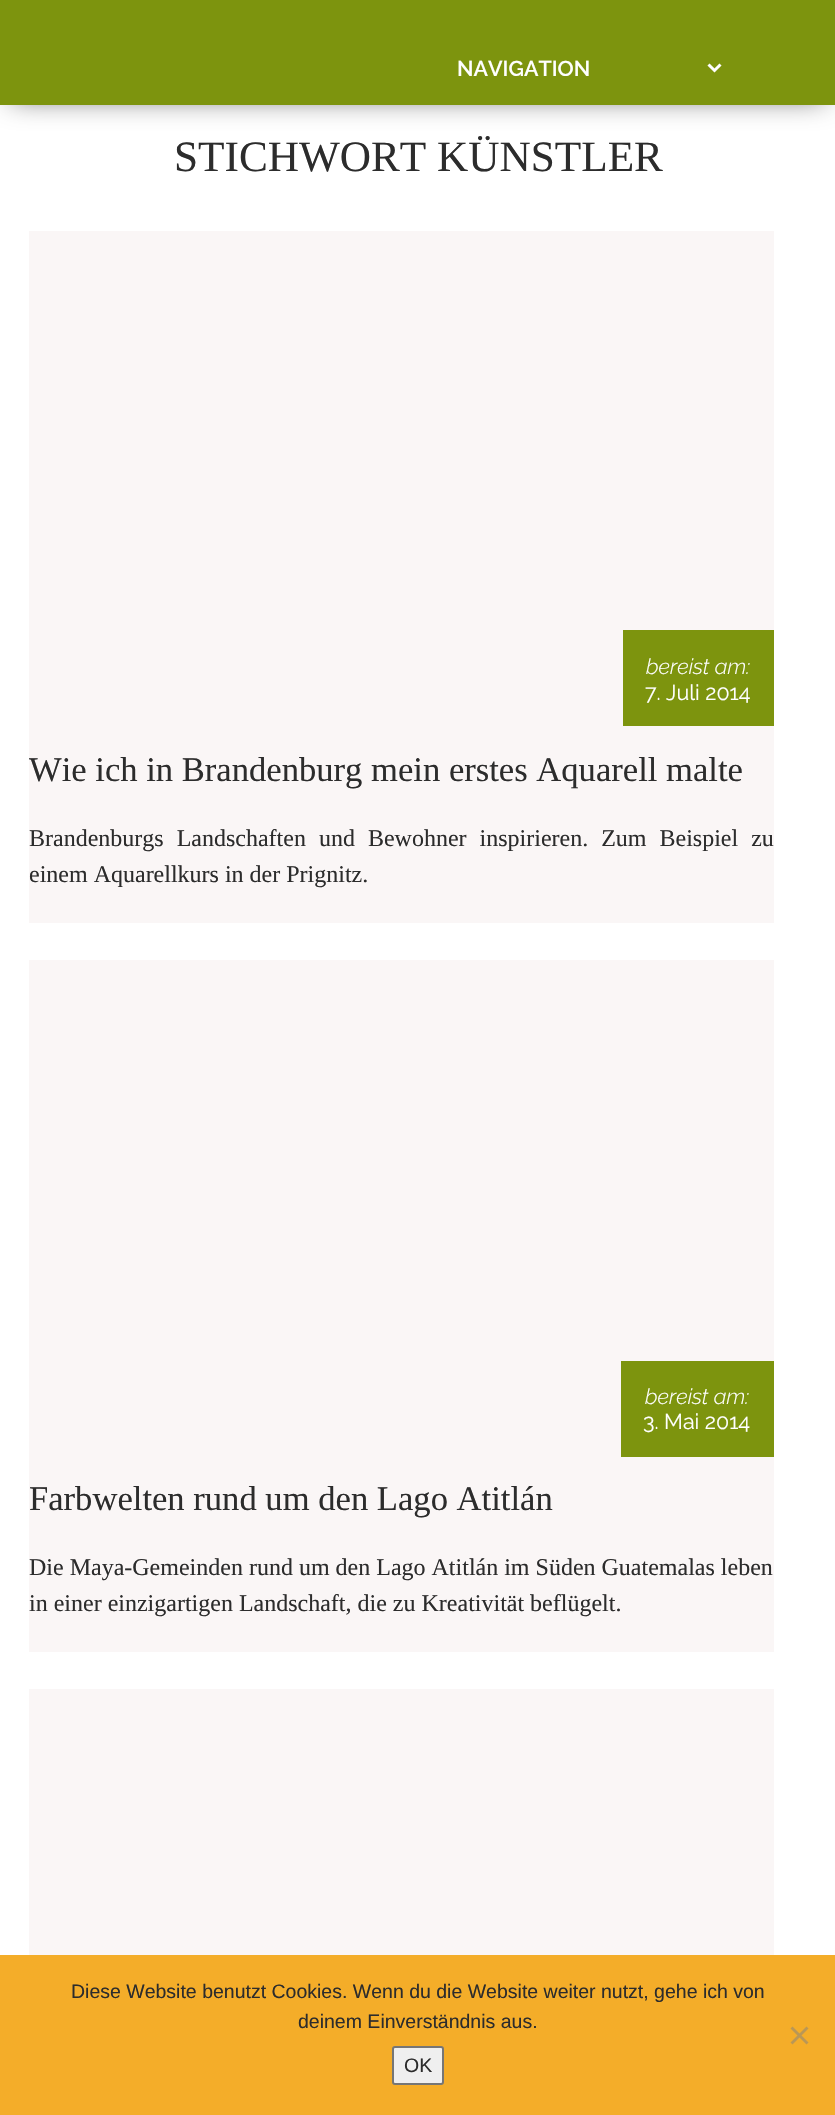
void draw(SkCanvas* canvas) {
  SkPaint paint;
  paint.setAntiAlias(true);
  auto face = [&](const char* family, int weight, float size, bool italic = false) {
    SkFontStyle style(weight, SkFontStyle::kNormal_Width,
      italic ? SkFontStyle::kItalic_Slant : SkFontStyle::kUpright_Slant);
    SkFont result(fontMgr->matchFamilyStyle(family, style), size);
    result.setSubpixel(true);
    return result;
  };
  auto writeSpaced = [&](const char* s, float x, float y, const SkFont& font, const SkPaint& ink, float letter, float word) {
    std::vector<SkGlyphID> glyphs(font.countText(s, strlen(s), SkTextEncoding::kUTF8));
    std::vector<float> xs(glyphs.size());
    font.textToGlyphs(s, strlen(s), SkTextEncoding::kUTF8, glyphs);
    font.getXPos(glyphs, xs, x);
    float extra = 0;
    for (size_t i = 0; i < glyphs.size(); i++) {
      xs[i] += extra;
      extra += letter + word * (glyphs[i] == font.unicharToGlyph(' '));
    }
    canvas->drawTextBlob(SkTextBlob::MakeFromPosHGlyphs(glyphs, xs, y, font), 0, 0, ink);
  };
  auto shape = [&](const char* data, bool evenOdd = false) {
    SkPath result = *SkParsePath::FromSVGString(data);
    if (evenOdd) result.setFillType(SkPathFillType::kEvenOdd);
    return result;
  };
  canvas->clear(0xffffffff);
  paint.setColor(0xa3000000);
  paint.setMaskFilter(SkMaskFilter::MakeBlur(kNormal_SkBlurStyle, 14));
  canvas->drawRect(SkRect::MakeXYWH(11, 14, 814, 84), paint);
  paint.setMaskFilter(nullptr);
  paint.setColor(0xff7d940e);
  canvas->drawRect(SkRect::MakeXYWH(0, 0, 835, 105), paint);
  paint.setStroke(true);
  paint.setStrokeWidth(3);
  paint.setColor(0xffffffff);
  canvas->drawPath(shape("M708.5 64.5L714.5 70.5L720.5 64.5"), paint);
  paint.setStroke(false);
  {
    const struct { float x, y, w, h; SkColor color; } items[] = {
      {29, 231, 745, 692, 0xfffaf6f6},
      {623, 630, 151, 96, 0xff7d940e},
      {29, 960, 745, 692, 0xfffaf6f6},
      {621, 1361, 153, 96, 0xff7d940e},
      {29, 1689, 745, 266, 0xfffaf6f6},
      {0, 1955, 835, 160, 0xfff4ad29},
    };
    for (auto [x, y, w, h, color] : items) {
      paint.setColor(color);
      canvas->drawRect(SkRect::MakeXYWH(x, y, w, h), paint);
    }
  }
  paint.setColor(0xffba9755);
  canvas->drawPath(shape("M806.5 2026.5L808.5 2028.5L792.5 2044.5L790.5 2042.5Z"), paint);
  canvas->drawPath(shape("M790.5 2028.5L792.5 2026.5L808.5 2042.5L806.5 2044.5Z"), paint);
  paint.setColor(0xffefefef);
  canvas->drawRoundRect(SkRect::MakeXYWH(393, 2047, 50, 37), 2, 2, paint);
  paint.setStroke(true);
  paint.setStrokeWidth(2);
  paint.setColor(0xff767676);
  canvas->drawRoundRect(SkRect::MakeXYWH(393, 2047, 50, 37), 2, 2, paint);
  auto f0 = face("Raleway", 600, 21.5f);
  paint.setStroke(false);
  paint.setColor(0xffffffff);
  canvas->drawString("NAVIGATION", 457, 76, f0, paint);
  auto f1 = face("Liberation Serif", 400, 43.25f);
  paint.setColor(0xff2c2c2c);
  canvas->drawString("STICHWORT KÜNSTLER", 174, 171, f1, paint);
  auto f2 = face("Raleway", 300, 21.5f, true);
  paint.setColor(0xffffffff);
  canvas->drawString("bereist am:", 646, 674, f2, paint);
  auto f3 = face("Raleway", 400, 21.5f);
  canvas->drawString("7. Juli 2014", 645, 700, f3, paint);
  auto f4 = face("Liberation Serif", 400, 34.6f);
  paint.setColor(0xff2c2c2c);
  canvas->drawString("Wie ich in Brandenburg mein erstes Aquarell malte", 29, 781, f4, paint);
  auto f5 = face("Liberation Serif", 400, 24);
  writeSpaced("Brandenburgs Landschaften und Bewohner inspirieren. Zum Beispiel zu", 29, 846, f5, paint, 0, 7);
  canvas->drawString("einem Aquarellkurs in der Prignitz.", 29, 882, f5, paint);
  paint.setColor(0xffffffff);
  canvas->drawString("bereist am:", 645, 1404, f2, paint);
  canvas->drawString("3. Mai 2014", 643, 1429, f3, paint);
  paint.setColor(0xff2c2c2c);
  canvas->drawString("Farbwelten rund um den Lago Atitlán", 29, 1510, f4, paint);
  canvas->drawString("Die Maya-Gemeinden rund um den Lago Atitlán im Süden Guatemalas leben", 29, 1575, f5, paint);
  canvas->drawString("in einer einzigartigen Landschaft, die zu Kreativität beflügelt.", 29, 1611, f5, paint);
  auto f6 = face("Liberation Sans", 400, 19.5f);
  {
    const struct { const char* s; float x, y; } items[] = {
      {"Diese Website benutzt Cookies. Wenn du die Website weiter nutzt, gehe ich von", 71, 1998},
      {"deinem Einverständnis aus.", 298, 2028},
      {"OK", 404, 2072},
    };
    for (auto [s, x, y] : items) {
      canvas->drawString(s, x, y, f6, paint);
    }
  }
}
